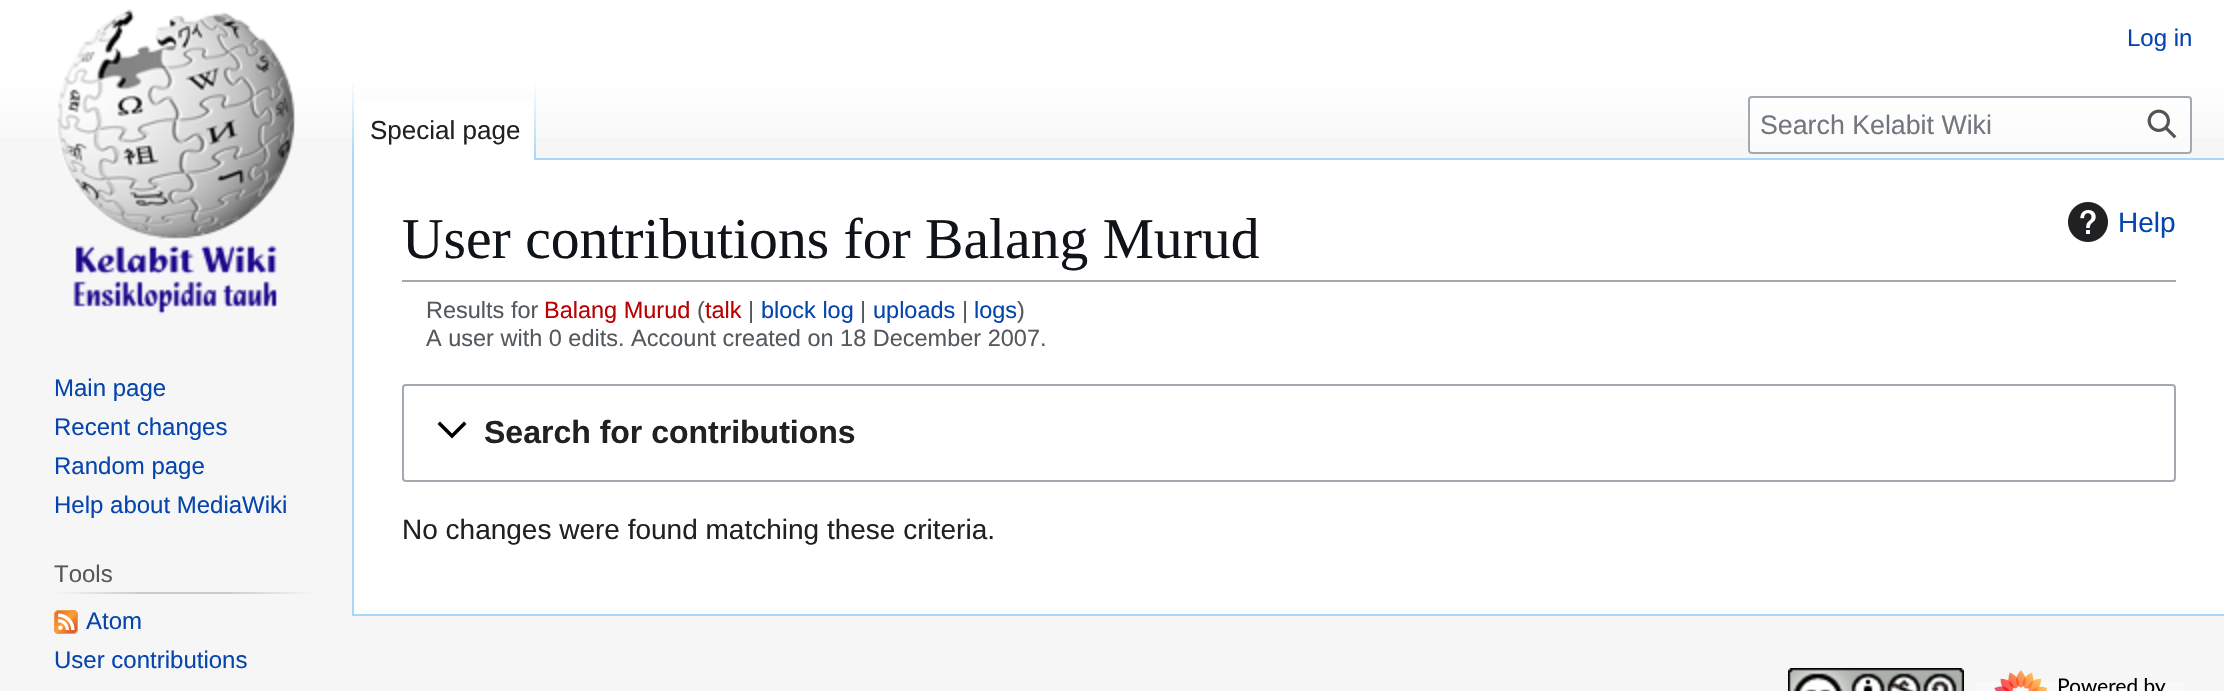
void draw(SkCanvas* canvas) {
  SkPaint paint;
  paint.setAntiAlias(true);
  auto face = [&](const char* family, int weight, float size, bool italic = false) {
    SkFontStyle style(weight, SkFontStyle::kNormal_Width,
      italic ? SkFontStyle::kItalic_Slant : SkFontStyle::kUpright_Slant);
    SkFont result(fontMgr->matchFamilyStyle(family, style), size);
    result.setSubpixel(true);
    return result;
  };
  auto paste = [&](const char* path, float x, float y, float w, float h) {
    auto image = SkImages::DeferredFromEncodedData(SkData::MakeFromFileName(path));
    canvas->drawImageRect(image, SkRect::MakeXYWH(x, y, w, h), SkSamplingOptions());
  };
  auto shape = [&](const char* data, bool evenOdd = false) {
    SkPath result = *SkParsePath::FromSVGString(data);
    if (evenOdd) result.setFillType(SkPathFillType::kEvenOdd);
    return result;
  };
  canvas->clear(0xfff6f6f6);
  {
    const SkColor colors[] = {0xffffffff, 0xfff6f6f6};
    const float stops[] = {0.5f, 1};
    const SkPoint ends[] = {{1112, 0}, {1112, 160}};
    paint.setShader(SkGradientShader::MakeLinear(ends, colors, stops, 2, SkTileMode::kClamp));
    paint.setAlpha(255);
  }
  canvas->drawRect(SkRect::MakeXYWH(0, 0, 2224, 138), paint);
  paint.setShader(nullptr);
  paint.setColor(0xffa7d7f9);
  canvas->drawRect(SkRect::MakeXYWH(352, 614, 1872, 2), paint);
  canvas->drawRect(SkRect::MakeXYWH(352, 158, 2, 458), paint);
  {
    const SkColor colors[] = {0x00a7d7f9, 0xffa7d7f9};
    const float stops[] = {0, 1};
    const SkPoint ends[] = {{353, 80}, {353, 160}};
    paint.setShader(SkGradientShader::MakeLinear(ends, colors, stops, 2, SkTileMode::kClamp));
    paint.setAlpha(255);
  }
  canvas->drawRect(SkRect::MakeXYWH(352, 80, 2, 80), paint);
  paint.setShader(nullptr);
  paint.setColor(0xffffffff);
  canvas->drawRect(SkRect::MakeXYWH(354, 102, 180, 58), paint);
  {
    const SkColor colors[] = {0xffffffff, 0xffa7d7f9};
    const float stops[] = {0, 1};
    const SkPoint ends[] = {{535, 80}, {535, 160}};
    paint.setShader(SkGradientShader::MakeLinear(ends, colors, stops, 2, SkTileMode::kClamp));
    paint.setAlpha(255);
  }
  canvas->drawRect(SkRect::MakeXYWH(534, 80, 2, 80), paint);
  paint.setShader(nullptr);
  paint.setColor(0x80ffffff);
  canvas->drawRoundRect(SkRect::MakeXYWH(1749, 97, 442, 56), 3, 3, paint);
  paint.setStroke(true);
  paint.setStrokeWidth(2);
  paint.setColor(0xffa2a9b1);
  canvas->drawRoundRect(SkRect::MakeXYWH(1749, 97, 442, 56), 3, 3, paint);
  paste("img/1.png", 2147, 109, 30, 30);
  paste("img/2.png", 56, 9, 240, 306);
  paint.setStroke(false);
  {
    const SkColor colors[] = {0xfff6f6f6, 0xffc8ccd1, 0xffc8ccd1, 0xfff6f6f6};
    const float stops[] = {0, 0.33f, 0.66f, 1};
    const SkPoint ends[] = {{54, 593}, {316, 593}};
    paint.setShader(SkGradientShader::MakeLinear(ends, colors, stops, 4, SkTileMode::kClamp));
    paint.setAlpha(255);
  }
  canvas->drawRect(SkRect::MakeXYWH(54, 592, 262, 2), paint);
  paste("img/3.png", 54, 610, 24, 24);
  paint.setShader(nullptr);
  {
    const struct { float x, y, w, h; SkColor color; } items[] = {
      {354, 160, 1870, 454, 0xffffffff},
      {536, 158, 1688, 2, 0xffa7d7f9},
      {402, 280, 1774, 2, 0xffa2a9b1},
    };
    for (auto [x, y, w, h, color] : items) {
      paint.setColor(color);
      canvas->drawRect(SkRect::MakeXYWH(x, y, w, h), paint);
    }
  }
  paste("img/4.png", 2068, 202, 40, 40);
  paint.setStroke(true);
  canvas->drawRoundRect(SkRect::MakeXYWH(403, 385, 1772, 96), 3, 3, paint);
  paint.setStroke(false);
  paint.setColor(0xff000000);
  canvas->drawPath(shape("M464 421.5L452 433.5L440 421.5L437.5 424L452 438.5L466.5 424Z"), paint);
  paste("img/5.png", 1788, 668, 176, 23);
  paint.setColor(0xfff8f9fa);
  canvas->drawRect(SkRect::MakeXYWH(1976, 682, 208, 9), paint);
  paste("img/6.png", 1994, 670, 172, 21);
  auto f0 = face("Liberation Sans", 400, 24);
  paint.setColor(0xff0645ad);
  canvas->drawString("Log in", 2127, 46, f0, paint);
  auto f1 = face("Liberation Sans", 400, 26);
  paint.setColor(0xff202122);
  canvas->drawString("Special page", 370, 139, f1, paint);
  auto f2 = face("Liberation Sans", 400, 26.75f);
  paint.setColor(0xff72777d);
  canvas->drawString("Search Kelabit Wiki", 1760, 134, f2, paint);
  paint.setColor(0xff0645ad);
  {
    const struct { const char* s; float x, y; } items[] = {
      {"Main page", 54, 396},
      {"Recent changes", 54, 435},
      {"Random page", 54, 474},
      {"Help about MediaWiki", 54, 513},
    };
    for (auto [s, x, y] : items) {
      canvas->drawString(s, x, y, f0, paint);
    }
  }
  paint.setColor(0xff54595d);
  canvas->drawString("Tools", 54, 582, f0, paint);
  paint.setColor(0xff0645ad);
  canvas->drawString("Atom", 86, 629, f0, paint);
  canvas->drawString("User contributions", 54, 668, f0, paint);
  auto f3 = face("Liberation Serif", 400, 57.6f);
  paint.setColor(0xff101418);
  canvas->drawString("User contributions for Balang Murud", 402, 258, f3, paint);
  auto f4 = face("Liberation Sans", 400, 28);
  paint.setColor(0xff0645ad);
  canvas->drawString("Help", 2118, 232, f4, paint);
  auto f5 = face("Liberation Sans", 400, 23.5f);
  paint.setColor(0xff54595d);
  canvas->drawString("Results for", 426, 318, f5, paint);
  paint.setColor(0xffba0000);
  canvas->drawString("Balang Murud", 544, 318, f5, paint);
  paint.setColor(0xff54595d);
  canvas->drawString("(", 697, 318, f5, paint);
  paint.setColor(0xffba0000);
  canvas->drawString("talk", 705, 318, f5, paint);
  paint.setColor(0xff54595d);
  canvas->drawString("|", 748, 318, f5, paint);
  paint.setColor(0xff0645ad);
  canvas->drawString("block log", 761, 318, f5, paint);
  paint.setColor(0xff54595d);
  canvas->drawString("|", 860, 318, f5, paint);
  paint.setColor(0xff0645ad);
  canvas->drawString("uploads", 873, 318, f5, paint);
  paint.setColor(0xff54595d);
  canvas->drawString("|", 962, 318, f5, paint);
  paint.setColor(0xff0645ad);
  canvas->drawString("logs", 974, 318, f5, paint);
  paint.setColor(0xff54595d);
  canvas->drawString(")", 1017, 318, f5, paint);
  canvas->drawString("A user with 0 edits. Account created on 18 December 2007.", 426, 346, f5, paint);
  auto f6 = face("Liberation Sans", 700, 32);
  paint.setColor(0xff202122);
  canvas->drawString("Search for contributions", 484, 443, f6, paint);
  canvas->drawString("No changes were found matching these criteria.", 402, 539, f4, paint);
}
